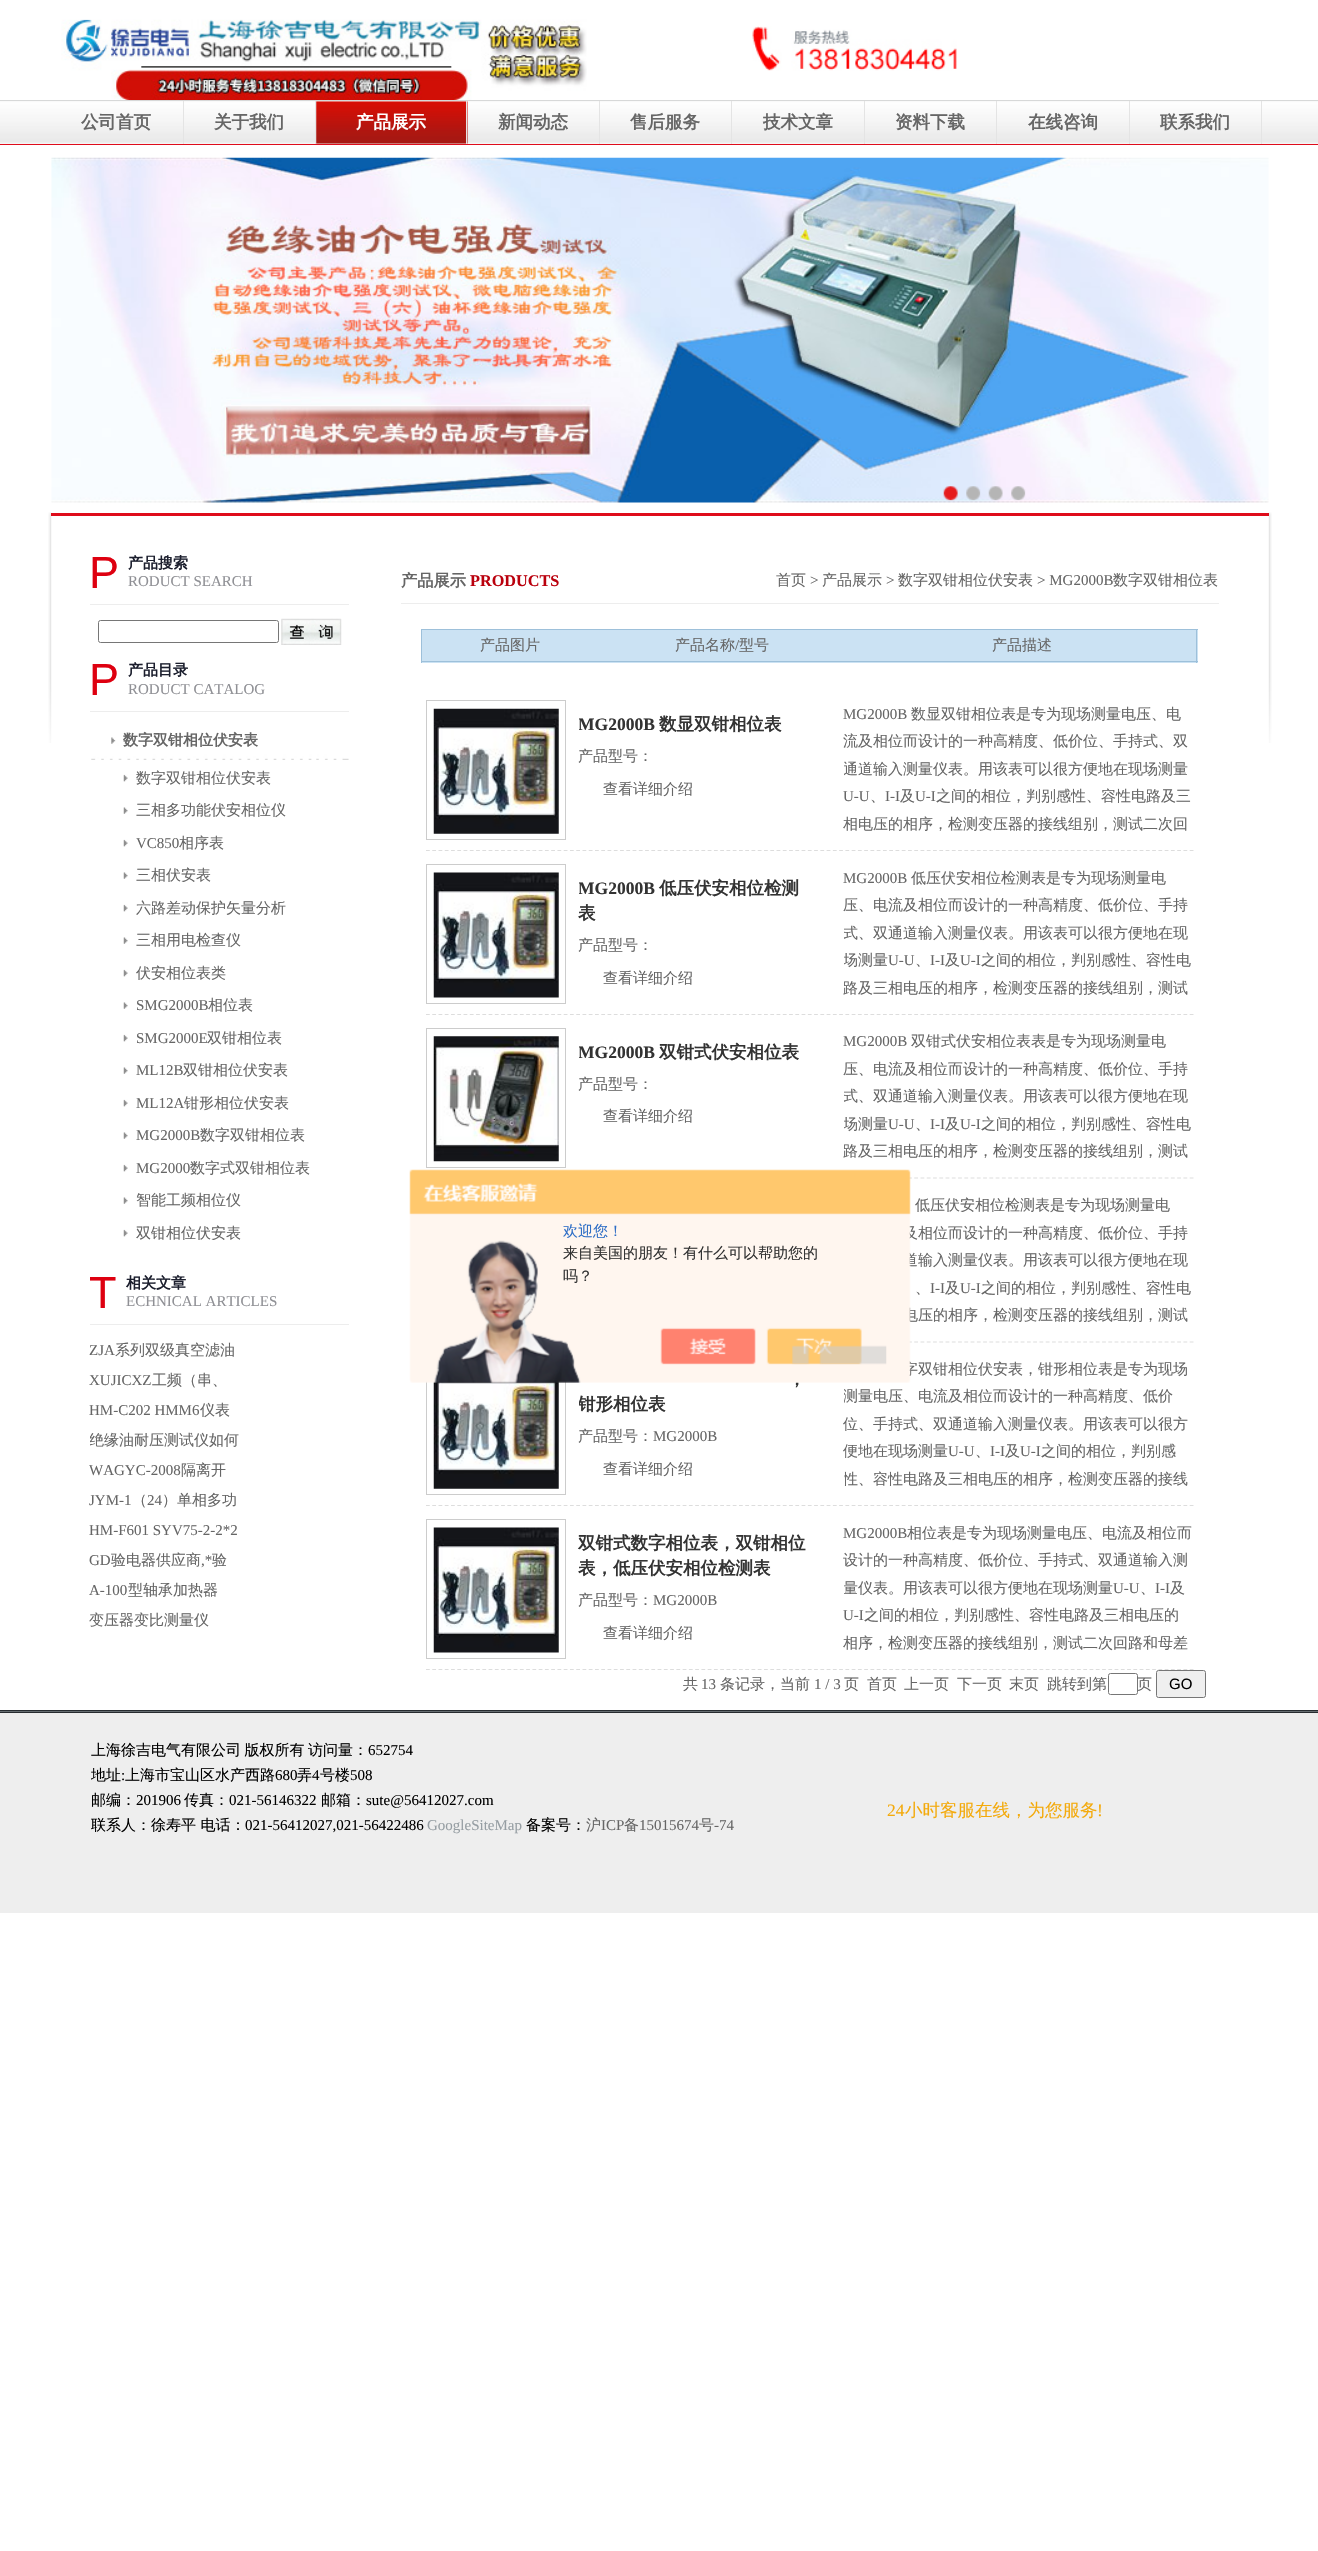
void draw(SkCanvas* canvas) {
  SkPaint paint;
  paint.setAntiAlias(true);
  auto face = [&](const char* family, int weight, float size, bool italic = false) {
    SkFontStyle style(weight, SkFontStyle::kNormal_Width,
      italic ? SkFontStyle::kItalic_Slant : SkFontStyle::kUpright_Slant);
    SkFont result(fontMgr->matchFamilyStyle(family, style), size);
    result.setSubpixel(true);
    return result;
  };
  auto writeSpaced = [&](const char* s, float x, float y, const SkFont& font, const SkPaint& ink, float letter, float word) {
    std::vector<SkGlyphID> glyphs(font.countText(s, strlen(s), SkTextEncoding::kUTF8));
    std::vector<float> xs(glyphs.size());
    font.textToGlyphs(s, strlen(s), SkTextEncoding::kUTF8, glyphs);
    font.getXPos(glyphs, xs, x);
    float extra = 0;
    for (size_t i = 0; i < glyphs.size(); i++) {
      xs[i] += extra;
      extra += letter + word * (glyphs[i] == font.unicharToGlyph(' '));
    }
    canvas->drawTextBlob(SkTextBlob::MakeFromPosHGlyphs(glyphs, xs, y, font), 0, 0, ink);
  };
  auto paste = [&](const char* path, float x, float y, float w, float h) {
    auto image = SkImages::DeferredFromEncodedData(SkData::MakeFromFileName(path));
    canvas->drawImageRect(image, SkRect::MakeXYWH(x, y, w, h), SkSamplingOptions());
  };
  auto shape = [&](const char* data, bool evenOdd = false) {
    SkPath result = *SkParsePath::FromSVGString(data);
    if (evenOdd) result.setFillType(SkPathFillType::kEvenOdd);
    return result;
  };
  canvas->clear(0xffffffff);
  paste("img/1.png", 61, 19, 526, 81);
  paste("img/2.png", 752, 26, 205, 45);
  paste("img/3.png", 0, 101, 1318, 43);
  {
    const struct { float x, y, w, h; SkColor color; } items[] = {
      {0, 100, 1318, 1, 0xffd7d8d8},
      {0, 144, 1318, 1, 0xffdf0c1b},
      {183, 101, 1, 43, 0xffe4e4e4},
      {315, 101, 1, 43, 0xffe4e4e4},
    };
    for (auto [x, y, w, h, color] : items) {
      paint.setColor(color);
      canvas->drawRect(SkRect::MakeXYWH(x, y, w, h), paint);
    }
  }
  paste("img/4.png", 316, 101, 152, 43);
  {
    const struct { float x, y, w, h; SkColor color; } items[] = {
      {466, 101, 1, 43, 0xffe4e4e4},
      {599, 101, 1, 43, 0xffe4e4e4},
      {731, 101, 1, 43, 0xffe4e4e4},
      {864, 101, 1, 43, 0xffe4e4e4},
      {996, 101, 1, 43, 0xffe4e4e4},
      {1129, 101, 1, 43, 0xffe4e4e4},
      {1261, 101, 1, 43, 0xffe4e4e4},
    };
    for (auto [x, y, w, h, color] : items) {
      paint.setColor(color);
      canvas->drawRect(SkRect::MakeXYWH(x, y, w, h), paint);
    }
  }
  paste("img/5.png", 51, 157, 1218, 346);
  paste("img/6.png", 943, 486, 15, 15);
  paste("img/7.png", 966, 486, 15, 15);
  paste("img/8.png", 988, 486, 15, 15);
  paste("img/9.png", 1011, 486, 15, 15);
  paint.setColor(0xffdf0c1b);
  canvas->drawRect(SkRect::MakeXYWH(51, 513, 1218, 3), paint);
  paste("img/10.png", 48, 512, 4, 231);
  paint.setColor(0xffededed);
  canvas->drawRect(SkRect::MakeXYWH(90, 604, 259, 1), paint);
  paint.setStroke(true);
  paint.setStrokeWidth(1);
  paint.setColor(0xff767676);
  canvas->drawRoundRect(SkRect::MakeXYWH(98.5f, 620.5f, 180, 22), 2, 2, paint);
  paste("img/11.png", 281, 618, 61, 27);
  paint.setStroke(false);
  paint.setColor(0xffededed);
  canvas->drawRect(SkRect::MakeXYWH(90, 711, 259, 1), paint);
  paste("img/12.png", 91, 737, 258, 23);
  paste("img/13.png", 123, 774, 5, 8);
  paste("img/14.png", 123, 807, 5, 7);
  paste("img/13.png", 123, 839, 5, 8);
  paste("img/14.png", 123, 872, 5, 7);
  paste("img/13.png", 123, 904, 5, 8);
  paste("img/14.png", 123, 937, 5, 7);
  paste("img/13.png", 123, 969, 5, 8);
  paste("img/14.png", 123, 1002, 5, 7);
  paste("img/13.png", 123, 1034, 5, 8);
  paste("img/14.png", 123, 1067, 5, 7);
  paste("img/13.png", 123, 1099, 5, 8);
  paste("img/14.png", 123, 1132, 5, 7);
  paste("img/13.png", 123, 1164, 5, 8);
  paste("img/14.png", 123, 1197, 5, 7);
  paste("img/13.png", 123, 1229, 5, 8);
  {
    const struct { float x, y, w, h; SkColor color; } items[] = {
      {90, 1324, 259, 1, 0xffededed},
      {401, 603, 818, 1, 0xffededed},
      {422, 630, 776, 33, 0xffcbe2f3},
      {421, 629, 777, 1, 0xff9dc0da},
      {1196, 629, 1, 34, 0xff9dc0da},
      {421, 661, 777, 1, 0xff9dc0da},
      {421, 629, 1, 34, 0xff9dc0da},
    };
    for (auto [x, y, w, h, color] : items) {
      paint.setColor(color);
      canvas->drawRect(SkRect::MakeXYWH(x, y, w, h), paint);
    }
  }
  paint.setStroke(true);
  paint.setStrokeWidth(1.2f);
  paint.setColor(0xffdddddd);
  paint.setPathEffect(SkDashPathEffect::Make({{3.75f, 2.51f}}, 0));
  canvas->drawPath(shape("M426 850.5H1194"), paint);
  paint.setPathEffect(nullptr);
  paint.setStrokeWidth(1);
  paint.setColor(0xffcccccc);
  canvas->drawRect(SkRect::MakeXYWH(426.5f, 700.5f, 139, 139), paint);
  paste("img/15.png", 433, 708, 126, 126);
  paint.setStrokeWidth(1.2f);
  paint.setColor(0xffdddddd);
  paint.setPathEffect(SkDashPathEffect::Make({{3.75f, 2.51f}}, 0));
  canvas->drawPath(shape("M426 1014.5H1194"), paint);
  paint.setPathEffect(nullptr);
  paint.setStrokeWidth(1);
  paint.setColor(0xffcccccc);
  canvas->drawRect(SkRect::MakeXYWH(426.5f, 864.5f, 139, 139), paint);
  paste("img/16.png", 433, 872, 126, 126);
  paint.setStrokeWidth(1.2f);
  paint.setColor(0xffdddddd);
  paint.setPathEffect(SkDashPathEffect::Make({{3.75f, 2.51f}}, 0));
  canvas->drawPath(shape("M426 1178H1194"), paint);
  paint.setPathEffect(nullptr);
  paint.setStrokeWidth(1);
  paint.setColor(0xffcccccc);
  canvas->drawRect(SkRect::MakeXYWH(426.5f, 1028.5f, 139, 139), paint);
  paste("img/17.png", 433, 1036, 126, 126);
  paint.setStrokeWidth(1.2f);
  paint.setColor(0xffdddddd);
  paint.setPathEffect(SkDashPathEffect::Make({{3.75f, 2.51f}}, 0));
  canvas->drawPath(shape("M426 1342H1194"), paint);
  paint.setPathEffect(nullptr);
  paint.setPathEffect(SkDashPathEffect::Make({{3.75f, 2.51f}}, 0));
  canvas->drawPath(shape("M426 1505.5H1194"), paint);
  paint.setPathEffect(nullptr);
  paint.setStrokeWidth(1);
  paint.setColor(0xffcccccc);
  canvas->drawRect(SkRect::MakeXYWH(426.5f, 1355.5f, 139, 139), paint);
  paste("img/18.png", 433, 1381, 126, 108);
  paint.setStrokeWidth(1.2f);
  paint.setColor(0xffdddddd);
  paint.setPathEffect(SkDashPathEffect::Make({{3.75f, 2.51f}}, 0));
  canvas->drawPath(shape("M426 1669.5H1194"), paint);
  paint.setPathEffect(nullptr);
  paint.setStrokeWidth(1);
  paint.setColor(0xffcccccc);
  canvas->drawRect(SkRect::MakeXYWH(426.5f, 1519.5f, 139, 139), paint);
  paste("img/16.png", 433, 1527, 126, 126);
  paint.setColor(0xff767676);
  canvas->drawRoundRect(SkRect::MakeXYWH(1108.5f, 1673.5f, 29, 21), 2, 2, paint);
  paint.setStroke(false);
  paint.setColor(0xffefefef);
  canvas->drawRoundRect(SkRect::MakeXYWH(1156.5f, 1670.5f, 49, 27), 2, 2, paint);
  paint.setStroke(true);
  paint.setColor(0xff767676);
  canvas->drawRoundRect(SkRect::MakeXYWH(1156.5f, 1670.5f, 49, 27), 2, 2, paint);
  paste("img/19.png", 1268, 512, 4, 231);
  paint.setStroke(false);
  {
    const struct { float x, y, w, h; SkColor color; } items[] = {
      {0, 1710, 1318, 3, 0xff272c30},
      {0, 1711, 1318, 1, 0xff666d71},
      {0, 1713, 1318, 200, 0xffeeeeee},
    };
    for (auto [x, y, w, h, color] : items) {
      paint.setColor(color);
      canvas->drawRect(SkRect::MakeXYWH(x, y, w, h), paint);
    }
  }
  auto f0 = face("WenQuanYi Zen Hei", 700, 17.5f);
  paint.setColor(0xff666666);
  canvas->drawString("公司首页", 81, 128, f0, paint);
  canvas->drawString("关于我们", 214, 128, f0, paint);
  paint.setColor(0xffffffff);
  canvas->drawString("产品展示", 356, 128, f0, paint);
  paint.setColor(0xff666666);
  {
    const struct { const char* s; float x, y; } items[] = {
      {"新闻动态", 498, 128},
      {"售后服务", 630, 128},
      {"技术文章", 763, 128},
      {"资料下载", 895, 128},
      {"在线咨询", 1028, 128},
      {"联系我们", 1160, 128},
    };
    for (auto [s, x, y] : items) {
      canvas->drawString(s, x, y, f0, paint);
    }
  }
  auto f1 = face("Liberation Sans", 400, 45);
  paint.setColor(0xffde0010);
  canvas->drawString("P", 89, 588, f1, paint);
  auto f2 = face("WenQuanYi Zen Hei", 700, 15);
  paint.setColor(0xff1c1f2e);
  canvas->drawString("产品搜索", 128, 568, f2, paint);
  auto f3 = face("Liberation Serif", 400, 15);
  paint.setColor(0xff8f9095);
  canvas->drawString("RODUCT SEARCH", 128, 586, f3, paint);
  paint.setColor(0xffde0010);
  canvas->drawString("P", 89, 695, f1, paint);
  paint.setColor(0xff1c1f2e);
  canvas->drawString("产品目录", 128, 675, f2, paint);
  paint.setColor(0xff8f9095);
  canvas->drawString("RODUCT CATALOG", 128, 694, f3, paint);
  paint.setColor(0xff666666);
  canvas->drawString("数字双钳相位伏安表", 123, 745, f2, paint);
  auto f4 = face("WenQuanYi Zen Hei", 500, 15);
  canvas->drawString("数字双钳相位伏安表", 136, 783, f4, paint);
  canvas->drawString("三相多功能伏安相位仪", 136, 815, f4, paint);
  canvas->drawString("VC850", 136, 848, f3, paint);
  {
    const struct { const char* s; float x, y; } items[] = {
      {"相序表", 179, 848},
      {"三相伏安表", 136, 880},
      {"六路差动保护矢量分析", 136, 913},
      {"三相用电检查仪", 136, 945},
      {"伏安相位表类", 136, 978},
    };
    for (auto [s, x, y] : items) {
      canvas->drawString(s, x, y, f4, paint);
    }
  }
  canvas->drawString("SMG2000B", 136, 1010, f3, paint);
  canvas->drawString("相位表", 208, 1010, f4, paint);
  canvas->drawString("SMG2000E", 136, 1043, f3, paint);
  canvas->drawString("双钳相位表", 207, 1043, f4, paint);
  canvas->drawString("ML12B", 136, 1075, f3, paint);
  canvas->drawString("双钳相位伏安表", 183, 1075, f4, paint);
  canvas->drawString("ML12A", 136, 1108, f3, paint);
  canvas->drawString("钳形相位伏安表", 184, 1108, f4, paint);
  canvas->drawString("MG2000B", 136, 1140, f3, paint);
  canvas->drawString("数字双钳相位表", 200, 1140, f4, paint);
  canvas->drawString("MG2000", 136, 1173, f3, paint);
  {
    const struct { const char* s; float x, y; } items[] = {
      {"数字式双钳相位表", 190, 1173},
      {"智能工频相位仪", 136, 1205},
      {"双钳相位伏安表", 136, 1238},
    };
    for (auto [s, x, y] : items) {
      canvas->drawString(s, x, y, f4, paint);
    }
  }
  paint.setColor(0xffde0010);
  canvas->drawString("T", 89, 1308, f1, paint);
  paint.setColor(0xff1c1f2e);
  canvas->drawString("相关文章", 126, 1288, f2, paint);
  paint.setColor(0xff8f9095);
  canvas->drawString("ECHNICAL ARTICLES", 126, 1306, f3, paint);
  paint.setColor(0xff666666);
  canvas->drawString("ZJA", 89, 1355, f3, paint);
  canvas->drawString("系列双级真空滤油", 115, 1355, f4, paint);
  canvas->drawString("XUJICXZ", 89, 1385, f3, paint);
  canvas->drawString("工频（串、", 152, 1385, f4, paint);
  canvas->drawString("HM-C202 HMM6", 89, 1415, f3, paint);
  canvas->drawString("仪表", 200, 1415, f4, paint);
  canvas->save();
  canvas->clipRect(SkRect::MakeXYWH(90, 1425, 150, 30));
  canvas->drawString("绝缘油耐压测试仪如何", 89, 1445, f4, paint);
  canvas->restore();
  canvas->drawString("WAGYC-2008", 89, 1475, f3, paint);
  canvas->drawString("隔离开", 181, 1475, f4, paint);
  canvas->drawString("JYM-1", 89, 1505, f3, paint);
  canvas->drawString("（", 132, 1505, f4, paint);
  canvas->drawString("24", 147, 1505, f3, paint);
  canvas->drawString("）单相多功", 162, 1505, f4, paint);
  canvas->drawString("HM-F601 SYV75-2-2*2", 89, 1535, f3, paint);
  canvas->drawString("GD", 89, 1565, f3, paint);
  canvas->drawString("验电器供应商", 111, 1565, f4, paint);
  canvas->drawString(",*", 201, 1565, f3, paint);
  canvas->drawString("验", 212, 1565, f4, paint);
  canvas->drawString("A-100", 89, 1595, f3, paint);
  canvas->drawString("型轴承加热器", 128, 1595, f4, paint);
  canvas->drawString("变压器变比测量仪", 89, 1625, f4, paint);
  auto f5 = face("WenQuanYi Zen Hei", 700, 16.25f);
  canvas->drawString("产品展示", 401, 586, f5, paint);
  auto f6 = face("Liberation Serif", 700, 16.25f);
  paint.setColor(0xffba000d);
  canvas->drawString("PRODUCTS", 470, 586, f6, paint);
  paint.setColor(0xff666666);
  canvas->drawString("首页", 776, 585, f4, paint);
  canvas->drawString(">", 810, 585, f3, paint);
  canvas->drawString("产品展示", 822, 585, f4, paint);
  canvas->drawString(">", 886, 585, f3, paint);
  canvas->drawString("数字双钳相位伏安表", 898, 585, f4, paint);
  canvas->drawString("> MG2000B", 1037, 585, f3, paint);
  {
    const struct { const char* s; float x, y; } items[] = {
      {"数字双钳相位表", 1113, 585},
      {"产品图片", 480, 650},
      {"产品名称", 675, 650},
    };
    for (auto [s, x, y] : items) {
      canvas->drawString(s, x, y, f4, paint);
    }
  }
  canvas->drawString("/", 735, 650, f3, paint);
  canvas->drawString("型号", 739, 650, f4, paint);
  canvas->drawString("产品描述", 992, 650, f4, paint);
  canvas->save();
  canvas->clipRect(SkRect::MakeXYWH(579, 700, 237, 138));
  auto f7 = face("Liberation Serif", 700, 17.5f);
  paint.setColor(0xff333333);
  canvas->drawString("MG2000B", 578, 730, f7, paint);
  canvas->restore();
  canvas->drawString("数显双钳相位表", 659, 730, f0, paint);
  paint.setColor(0xff666666);
  canvas->drawString("产品型号：", 578, 761, f4, paint);
  canvas->drawString("查看详细介绍", 603, 794, f4, paint);
  canvas->drawString("MG2000B", 843, 719, f3, paint);
  canvas->drawString("数显双钳相位表是专为现场测量电压、电", 911, 719, f4, paint);
  canvas->drawString("流及相位而设计的一种高精度、低价位、手持式、双", 843, 746, f4, paint);
  canvas->save();
  canvas->clipRect(SkRect::MakeXYWH(844, 700, 350, 138));
  canvas->drawString("通道输入测量仪表。用该表可以很方便地在现场测量", 843, 774, f4, paint);
  canvas->restore();
  canvas->drawString("U-U", 843, 801, f3, paint);
  canvas->drawString("、", 870, 801, f4, paint);
  canvas->drawString("I-I", 885, 801, f3, paint);
  canvas->drawString("及", 900, 801, f4, paint);
  canvas->drawString("U-I", 915, 801, f3, paint);
  canvas->drawString("之间的相位，判别感性、容性电路及三", 936, 801, f4, paint);
  canvas->drawString("相电压的相序，检测变压器的接线组别，测试二次回", 843, 829, f4, paint);
  canvas->save();
  canvas->clipRect(SkRect::MakeXYWH(579, 864, 237, 137));
  paint.setColor(0xff333333);
  canvas->drawString("MG2000B", 578, 894, f7, paint);
  canvas->restore();
  canvas->drawString("低压伏安相位检测", 659, 894, f0, paint);
  canvas->drawString("表", 578, 919, f0, paint);
  paint.setColor(0xff666666);
  canvas->drawString("产品型号：", 578, 950, f4, paint);
  canvas->drawString("查看详细介绍", 603, 983, f4, paint);
  canvas->drawString("MG2000B", 843, 883, f3, paint);
  canvas->drawString("低压伏安相位检测表是专为现场测量电", 911, 883, f4, paint);
  canvas->drawString("压、电流及相位而设计的一种高精度、低价位、手持", 843, 910, f4, paint);
  canvas->save();
  canvas->clipRect(SkRect::MakeXYWH(844, 864, 350, 137));
  canvas->drawString("式、双通道输入测量仪表。用该表可以很方便地在现", 843, 938, f4, paint);
  canvas->drawString("场测量", 843, 965, f4, paint);
  canvas->restore();
  canvas->drawString("U-U", 888, 965, f3, paint);
  canvas->drawString("、", 915, 965, f4, paint);
  canvas->drawString("I-I", 930, 965, f3, paint);
  canvas->drawString("及", 945, 965, f4, paint);
  canvas->drawString("U-I", 960, 965, f3, paint);
  canvas->drawString("之间的相位，判别感性、容性电", 981, 965, f4, paint);
  canvas->drawString("路及三相电压的相序，检测变压器的接线组别，测试", 843, 993, f4, paint);
  canvas->save();
  canvas->clipRect(SkRect::MakeXYWH(579, 1028, 237, 137));
  paint.setColor(0xff333333);
  canvas->drawString("MG2000B", 578, 1058, f7, paint);
  canvas->restore();
  canvas->drawString("双钳式伏安相位表", 659, 1058, f0, paint);
  paint.setColor(0xff666666);
  canvas->drawString("产品型号：", 578, 1089, f4, paint);
  canvas->drawString("查看详细介绍", 603, 1121, f4, paint);
  canvas->drawString("MG2000B", 843, 1046, f3, paint);
  canvas->drawString("双钳式伏安相位表表是专为现场测量电", 911, 1046, f4, paint);
  canvas->drawString("压、电流及相位而设计的一种高精度、低价位、手持", 843, 1074, f4, paint);
  canvas->save();
  canvas->clipRect(SkRect::MakeXYWH(844, 1028, 350, 137));
  canvas->drawString("式、双通道输入测量仪表。用该表可以很方便地在现", 843, 1101, f4, paint);
  canvas->drawString("场测量", 843, 1129, f4, paint);
  canvas->restore();
  canvas->drawString("U-U", 888, 1129, f3, paint);
  canvas->drawString("、", 915, 1129, f4, paint);
  canvas->drawString("I-I", 930, 1129, f3, paint);
  canvas->drawString("及", 945, 1129, f4, paint);
  canvas->drawString("U-I", 960, 1129, f3, paint);
  {
    const struct { const char* s; float x, y; } items[] = {
      {"之间的相位，判别感性、容性电", 981, 1129},
      {"路及三相电压的相序，检测变压器的接线组别，测试", 843, 1156},
      {"低压伏安相位检测表是专为现场测量电", 915, 1210},
      {"及相位而设计的一种高精度、低价位、手持", 903, 1238},
      {"道输入测量仪表。用该表可以很方便地在现", 903, 1265},
      {"、", 915, 1293},
    };
    for (auto [s, x, y] : items) {
      canvas->drawString(s, x, y, f4, paint);
    }
  }
  canvas->drawString("I-I", 930, 1293, f3, paint);
  canvas->drawString("及", 945, 1293, f4, paint);
  canvas->drawString("U-I", 960, 1293, f3, paint);
  canvas->drawString("之间的相位，判别感性、容性电", 981, 1293, f4, paint);
  canvas->drawString("电压的相序，检测变压器的接线组别，测试", 903, 1320, f4, paint);
  paint.setColor(0xff333333);
  canvas->drawString("，", 788, 1385, f0, paint);
  canvas->save();
  canvas->clipRect(SkRect::MakeXYWH(579, 1355, 237, 138));
  canvas->drawString("钳形相位表", 578, 1410, f0, paint);
  canvas->restore();
  paint.setColor(0xff666666);
  canvas->drawString("产品型号：", 578, 1441, f4, paint);
  canvas->drawString("MG2000B", 653, 1441, f3, paint);
  canvas->drawString("查看详细介绍", 603, 1474, f4, paint);
  canvas->drawString("字双钳相位伏安表，钳形相位表是专为现场", 903, 1374, f4, paint);
  canvas->save();
  canvas->clipRect(SkRect::MakeXYWH(844, 1355, 350, 138));
  canvas->drawString("测量电压、电流及相位而设计的一种高精度、低价", 843, 1401, f4, paint);
  canvas->restore();
  canvas->drawString("位、手持式、双通道输入测量仪表。用该表可以很方", 843, 1429, f4, paint);
  canvas->drawString("便地在现场测量", 843, 1456, f4, paint);
  canvas->drawString("U-U", 948, 1456, f3, paint);
  canvas->drawString("、", 975, 1456, f4, paint);
  canvas->drawString("I-I", 990, 1456, f3, paint);
  canvas->drawString("及", 1005, 1456, f4, paint);
  canvas->drawString("U-I", 1020, 1456, f3, paint);
  canvas->drawString("之间的相位，判别感", 1041, 1456, f4, paint);
  canvas->save();
  canvas->clipRect(SkRect::MakeXYWH(844, 1355, 350, 138));
  canvas->drawString("性、容性电路及三相电压的相序，检测变压器的接线", 843, 1484, f4, paint);
  canvas->restore();
  paint.setColor(0xff333333);
  canvas->drawString("双钳式数字相位表，双钳相位", 578, 1549, f0, paint);
  canvas->drawString("表，低压伏安相位检测表", 578, 1574, f0, paint);
  paint.setColor(0xff666666);
  canvas->drawString("产品型号：", 578, 1605, f4, paint);
  canvas->drawString("MG2000B", 653, 1605, f3, paint);
  canvas->drawString("查看详细介绍", 603, 1638, f4, paint);
  canvas->drawString("MG2000B", 843, 1538, f3, paint);
  canvas->drawString("相位表是专为现场测量电压、电流及相位而", 907, 1538, f4, paint);
  canvas->drawString("设计的一种高精度、低价位、手持式、双通道输入测", 843, 1565, f4, paint);
  canvas->save();
  canvas->clipRect(SkRect::MakeXYWH(844, 1519, 350, 137));
  canvas->drawString("量仪表。用该表可以很方便地在现场测量", 843, 1593, f4, paint);
  canvas->restore();
  canvas->drawString("U-U", 1113, 1593, f3, paint);
  canvas->drawString("、", 1140, 1593, f4, paint);
  canvas->drawString("I-I", 1155, 1593, f3, paint);
  canvas->drawString("及", 1170, 1593, f4, paint);
  canvas->drawString("U-I", 843, 1620, f3, paint);
  {
    const struct { const char* s; float x, y; } items[] = {
      {"之间的相位，判别感性、容性电路及三相电压的", 864, 1620},
      {"相序，检测变压器的接线组别，测试二次回路和母差", 843, 1648},
      {"共", 683, 1689},
    };
    for (auto [s, x, y] : items) {
      canvas->drawString(s, x, y, f4, paint);
    }
  }
  canvas->drawString("13", 701, 1689, f3, paint);
  canvas->drawString("条记录，当前", 720, 1689, f4, paint);
  canvas->drawString("1 / 3", 814, 1689, f3, paint);
  {
    const struct { const char* s; float x, y; } items[] = {
      {"页", 844, 1689},
      {"首页", 867, 1689},
      {"上一页", 904, 1689},
      {"下一页", 957, 1689},
      {"末页", 1009, 1689},
      {"跳转到第", 1047, 1689},
      {"页", 1137, 1689},
    };
    for (auto [s, x, y] : items) {
      canvas->drawString(s, x, y, f4, paint);
    }
  }
  auto f8 = face("Liberation Sans", 400, 15);
  paint.setColor(0xff000000);
  canvas->drawString("GO", 1169, 1689, f8, paint);
  paste("img/20.png", 409, 1169, 502, 214);
  paint.setColor(0xff2e6ec6);
  canvas->drawString("欢迎您！", 563, 1236, f4, paint);
  paint.setColor(0xff333333);
  canvas->drawString("来自美国的朋友！有什么可以帮助您的", 563, 1258, f4, paint);
  canvas->drawString("吗？", 563, 1281, f4, paint);
  paste("img/21.png", 792, 1345, 95, 20);
  paint.setColor(0xff000000);
  writeSpaced("上海徐吉电气有限公司 版权所有 访问量：", 91, 1755, f4, paint, 0, -1);
  canvas->drawString("652754", 368, 1755, f3, paint);
  canvas->drawString("地址", 91, 1780, f4, paint);
  canvas->drawString(":", 121, 1780, f3, paint);
  canvas->drawString("上海市宝山区水产西路", 125, 1780, f4, paint);
  canvas->drawString("680", 275, 1780, f3, paint);
  canvas->drawString("弄", 297, 1780, f4, paint);
  canvas->drawString("4", 312, 1780, f3, paint);
  canvas->drawString("号楼", 320, 1780, f4, paint);
  canvas->drawString("508", 350, 1780, f3, paint);
  canvas->drawString("邮编：", 91, 1805, f4, paint);
  canvas->drawString("201906", 136, 1805, f3, paint);
  canvas->drawString("传真：", 184, 1805, f4, paint);
  canvas->drawString("021-56146322", 229, 1805, f3, paint);
  canvas->drawString("邮箱：", 321, 1805, f4, paint);
  canvas->drawString("sute@56412027.com", 366, 1805, f3, paint);
  canvas->drawString("联系人：徐寿平 电话：", 91, 1830, f4, paint);
  canvas->drawString("021-56412027,021-56422486", 245, 1830, f3, paint);
  paint.setColor(0xff969ea3);
  canvas->drawString("GoogleSiteMap", 427, 1830, f3, paint);
  paint.setColor(0xff000000);
  canvas->drawString("备案号：", 526, 1830, f4, paint);
  paint.setColor(0xff666666);
  canvas->drawString("沪", 586, 1830, f4, paint);
  canvas->drawString("ICP", 601, 1830, f3, paint);
  canvas->drawString("备", 624, 1830, f4, paint);
  canvas->drawString("15015674", 639, 1830, f3, paint);
  canvas->drawString("号", 699, 1830, f4, paint);
  canvas->drawString("-74", 714, 1830, f3, paint);
  auto f9 = face("Liberation Serif", 400, 17.5f);
  paint.setColor(0xfff4aa0b);
  canvas->drawString("24", 887, 1816, f9, paint);
  auto f10 = face("WenQuanYi Zen Hei", 500, 17.5f);
  canvas->drawString("小时客服在线，为您服务", 905, 1816, f10, paint);
  canvas->drawString("!", 1097, 1816, f9, paint);
}
